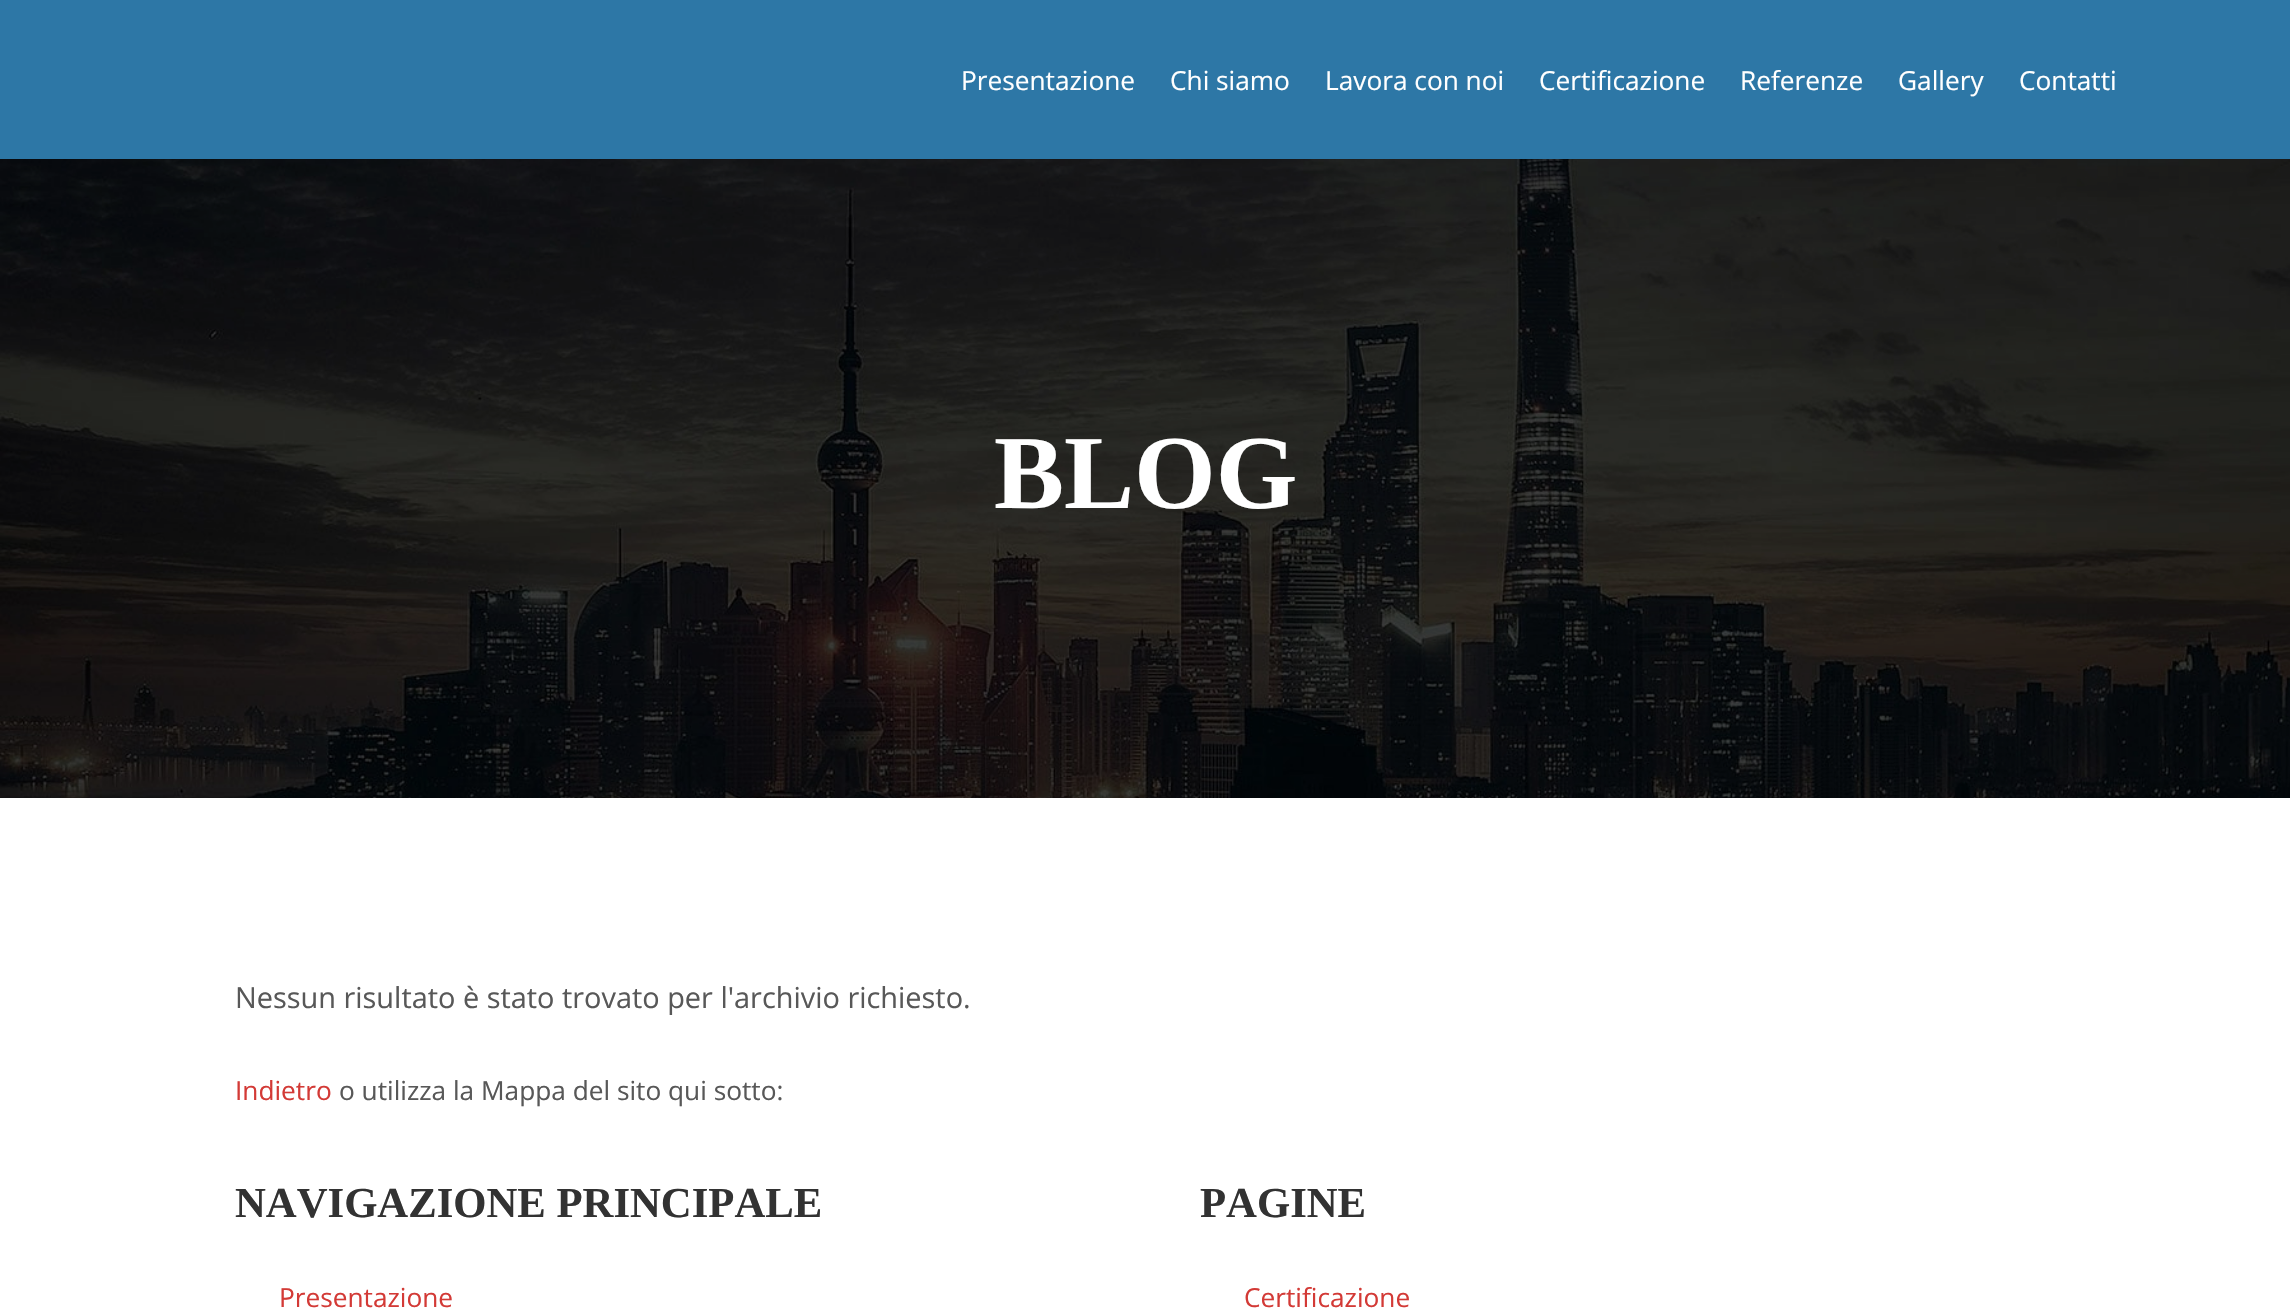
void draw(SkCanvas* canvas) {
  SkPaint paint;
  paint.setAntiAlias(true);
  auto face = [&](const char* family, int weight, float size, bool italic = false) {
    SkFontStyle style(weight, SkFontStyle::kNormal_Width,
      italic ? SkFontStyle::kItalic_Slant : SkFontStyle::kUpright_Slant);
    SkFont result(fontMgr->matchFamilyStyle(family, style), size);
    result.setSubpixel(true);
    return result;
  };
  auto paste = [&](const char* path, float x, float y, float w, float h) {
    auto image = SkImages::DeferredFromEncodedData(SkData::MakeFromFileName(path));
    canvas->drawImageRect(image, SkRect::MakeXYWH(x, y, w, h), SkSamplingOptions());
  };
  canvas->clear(0xffffffff);
  paint.setColor(0xff2d77a6);
  canvas->drawRect(SkRect::MakeXYWH(0, 0, 2290, 159), paint);
  paste("img/1.png", 0, 159, 2290, 639);
  auto f0 = face("Open Sans", 400, 26.25f);
  paint.setColor(0xffffffff);
  {
    const struct { const char* s; float x, y; } items[] = {
      {"Presentazione", 961, 90},
      {"Chi siamo", 1170, 90},
      {"Lavora con noi", 1325, 90},
      {"Certificazione", 1539, 90},
      {"Referenze", 1740, 90},
      {"Gallery", 1898, 90},
      {"Contatti", 2019, 90},
    };
    for (auto [s, x, y] : items) {
      canvas->drawString(s, x, y, f0, paint);
    }
  }
  auto f1 = face("Liberation Serif", 700, 105);
  canvas->drawString("BLOG", 994, 508, f1, paint);
  auto f2 = face("Open Sans", 400, 28.9f);
  paint.setColor(0xff585858);
  canvas->drawString("Nessun risultato è stato trovato per l'archivio richiesto.", 235, 1008, f2, paint);
  paint.setColor(0xffd33a36);
  canvas->drawString("Indietro", 235, 1100, f0, paint);
  paint.setColor(0xff585858);
  canvas->drawString("o utilizza la Mappa del sito qui sotto:", 339, 1100, f0, paint);
  auto f3 = face("Liberation Serif", 700, 42.7f);
  paint.setColor(0xff323232);
  canvas->drawString("NAVIGAZIONE PRINCIPALE", 235, 1217, f3, paint);
  paint.setColor(0xffd33a36);
  canvas->drawString("Presentazione", 279, 1307, f0, paint);
  paint.setColor(0xff323232);
  canvas->drawString("PAGINE", 1200, 1217, f3, paint);
  paint.setColor(0xffd33a36);
  canvas->drawString("Certificazione", 1244, 1307, f0, paint);
}
